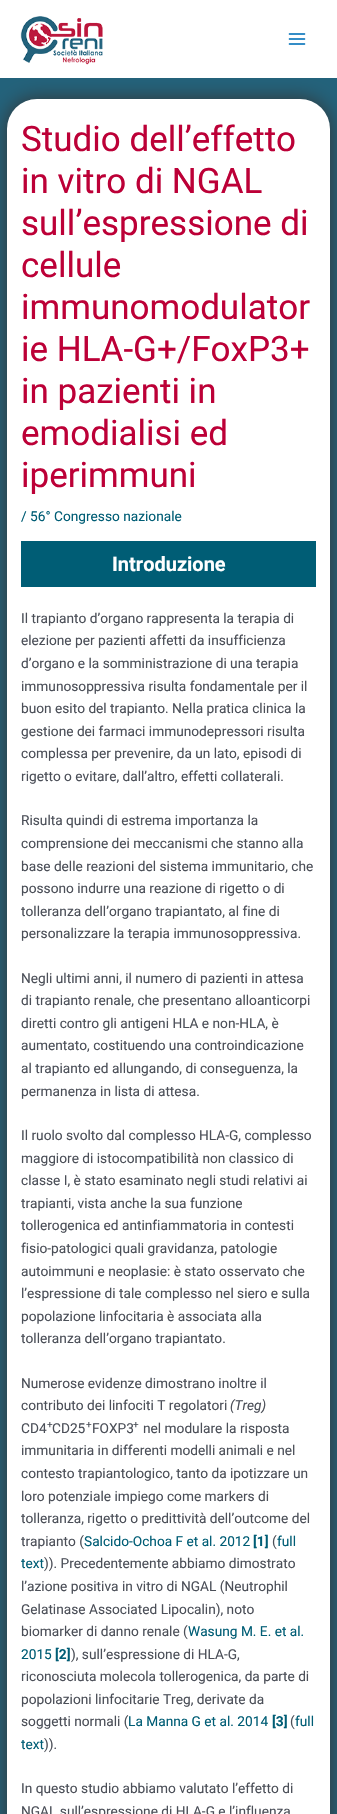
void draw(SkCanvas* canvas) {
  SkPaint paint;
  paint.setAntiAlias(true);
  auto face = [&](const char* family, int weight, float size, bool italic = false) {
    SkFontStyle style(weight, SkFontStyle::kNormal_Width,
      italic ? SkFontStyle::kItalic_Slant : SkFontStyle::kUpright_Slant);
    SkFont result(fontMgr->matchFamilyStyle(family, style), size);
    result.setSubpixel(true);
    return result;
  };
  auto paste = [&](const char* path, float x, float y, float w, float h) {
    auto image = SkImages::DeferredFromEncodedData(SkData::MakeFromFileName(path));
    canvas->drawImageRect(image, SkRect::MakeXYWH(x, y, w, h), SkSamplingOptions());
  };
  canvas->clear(0xff23627b);
  paint.setColor(0xff333333);
  paint.setMaskFilter(SkMaskFilter::MakeBlur(kNormal_SkBlurStyle, 10));
  canvas->drawRoundRect(SkRect::MakeXYWH(7, 99, 323, 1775), 30, 30, paint);
  paint.setMaskFilter(nullptr);
  paint.setColor(0xffffffff);
  canvas->drawRect(SkRect::MakeXYWH(0, 0, 337, 78), paint);
  paste("img/1.png", 20, 16, 83, 49);
  paste("img/2.png", 288, 33, 18, 12);
  canvas->drawRoundRect(SkRect::MakeXYWH(7, 99, 323, 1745), 30, 30, paint);
  paint.setColor(0xff005d75);
  canvas->drawRect(SkRect::MakeXYWH(21, 541, 295, 46), paint);
  auto f0 = face("Roboto", 400, 35);
  paint.setColor(0xffbc0037);
  {
    const struct { const char* s; float x, y; } items[] = {
      {"Studio dell’effetto", 21, 151},
      {"in vitro di NGAL", 21, 193},
      {"sull’espressione di", 21, 235},
      {"cellule", 21, 277},
      {"immunomodulator", 21, 319},
      {"ie HLA-G+/FoxP3+", 21, 361},
      {"in pazienti in", 21, 403},
      {"emodialisi ed", 21, 445},
      {"iperimmuni", 21, 487},
    };
    for (auto [s, x, y] : items) {
      canvas->drawString(s, x, y, f0, paint);
    }
  }
  auto f1 = face("Roboto", 400, 13.7f);
  paint.setColor(0xff005d75);
  canvas->drawString("/ 56° Congresso nazionale", 21, 521, f1, paint);
  auto f2 = face("Roboto", 700, 20);
  paint.setColor(0xffffffff);
  canvas->drawString("Introduzione", 112, 571, f2, paint);
  paint.setColor(0xff4b4f58);
  {
    const struct { const char* s; float x, y; } items[] = {
      {"Il trapianto d’organo rappresenta la terapia di", 21, 623},
      {"elezione per pazienti affetti da insufficienza", 21, 645},
      {"d’organo e la somministrazione di una terapia", 21, 668},
      {"immunosoppressiva risulta fondamentale per il", 21, 691},
      {"buon esito del trapianto. Nella pratica clinica la", 21, 713},
      {"gestione dei farmaci immunodepressori risulta", 21, 736},
      {"complessa per prevenire, da un lato, episodi di", 21, 758},
      {"rigetto o evitare, dall’altro, effetti collaterali.", 21, 781},
      {"Risulta quindi di estrema importanza la", 21, 825},
      {"comprensione dei meccanismi che stanno alla", 21, 848},
      {"base delle reazioni del sistema immunitario, che", 21, 871},
      {"possono indurre una reazione di rigetto o di", 21, 893},
      {"tolleranza dell’organo trapiantato, al fine di", 21, 916},
      {"personalizzare la terapia immunosoppressiva.", 21, 938},
      {"Negli ultimi anni, il numero di pazienti in attesa", 21, 983},
      {"di trapianto renale, che presentano alloanticorpi", 21, 1005},
      {"diretti contro gli antigeni HLA e non-HLA, è", 21, 1028},
      {"aumentato, costituendo una controindicazione", 21, 1050},
      {"al trapianto ed allungando, di conseguenza, la", 21, 1073},
      {"permanenza in lista di attesa.", 21, 1096},
      {"Il ruolo svolto dal complesso HLA-G, complesso", 21, 1140},
      {"maggiore di istocompatibilità non classico di", 21, 1163},
      {"classe I, è stato esaminato negli studi relativi ai", 21, 1185},
      {"trapianti, vista anche la sua funzione", 21, 1208},
      {"tollerogenica ed antinfiammatoria in contesti", 21, 1230},
      {"fisio-patologici quali gravidanza, patologie", 21, 1253},
      {"autoimmuni e neoplasie: è stato osservato che", 21, 1276},
      {"l’espressione di tale complesso nel siero e sulla", 21, 1298},
      {"popolazione linfocitaria è associata alla", 21, 1321},
      {"tolleranza dell’organo trapiantato.", 21, 1343},
      {"Numerose evidenze dimostrano inoltre il", 21, 1388},
      {"contributo dei linfociti T regolatori", 21, 1410},
    };
    for (auto [s, x, y] : items) {
      canvas->drawString(s, x, y, f1, paint);
    }
  }
  auto f3 = face("Roboto", 400, 13.7f, true);
  canvas->drawString("(Treg)", 230, 1410, f3, paint);
  canvas->drawString("CD4", 21, 1433, f1, paint);
  auto f4 = face("Roboto", 400, 10);
  canvas->drawString("+", 47, 1428, f4, paint);
  canvas->drawString("CD25", 52, 1433, f1, paint);
  canvas->drawString("+", 86, 1428, f4, paint);
  canvas->drawString("FOXP3", 92, 1433, f1, paint);
  canvas->drawString("+", 133, 1428, f4, paint);
  {
    const struct { const char* s; float x, y; } items[] = {
      {"nel modulare la risposta", 143, 1433},
      {"immunitaria in differenti modelli animali e nel", 21, 1455},
      {"contesto trapiantologico, tanto da ipotizzare un", 21, 1478},
      {"loro potenziale impiego come markers di", 21, 1501},
      {"tolleranza, rigetto o predittività dell’outcome del", 21, 1523},
      {"trapianto (", 21, 1546},
    };
    for (auto [s, x, y] : items) {
      canvas->drawString(s, x, y, f1, paint);
    }
  }
  paint.setColor(0xff005d75);
  canvas->drawString("Salcido-Ochoa F et al. 2012", 84, 1546, f1, paint);
  auto f5 = face("Roboto", 700, 13.7f);
  canvas->drawString("[1]", 253, 1546, f5, paint);
  paint.setColor(0xff4b4f58);
  canvas->drawString("(", 272, 1546, f1, paint);
  paint.setColor(0xff005d75);
  canvas->drawString("full", 277, 1546, f1, paint);
  canvas->drawString("text", 21, 1568, f1, paint);
  paint.setColor(0xff4b4f58);
  {
    const struct { const char* s; float x, y; } items[] = {
      {")). Precedentemente abbiamo dimostrato", 44, 1568},
      {"l’azione positiva in vitro di NGAL (Neutrophil", 21, 1591},
      {"Gelatinase Associated Lipocalin), noto", 21, 1614},
      {"biomarker di danno renale (", 21, 1636},
    };
    for (auto [s, x, y] : items) {
      canvas->drawString(s, x, y, f1, paint);
    }
  }
  paint.setColor(0xff005d75);
  canvas->drawString("Wasung M. E. et al.", 188, 1636, f1, paint);
  canvas->drawString("2015", 21, 1659, f1, paint);
  canvas->drawString("[2]", 55, 1659, f5, paint);
  paint.setColor(0xff4b4f58);
  {
    const struct { const char* s; float x, y; } items[] = {
      {"), sull’espressione di HLA-G,", 71, 1659},
      {"riconosciuta molecola tollerogenica, da parte di", 21, 1681},
      {"popolazioni linfocitarie Treg, derivate da", 21, 1704},
      {"soggetti normali (", 21, 1726},
    };
    for (auto [s, x, y] : items) {
      canvas->drawString(s, x, y, f1, paint);
    }
  }
  paint.setColor(0xff005d75);
  canvas->drawString("La Manna G et al. 2014", 128, 1726, f1, paint);
  canvas->drawString("[3]", 272, 1726, f5, paint);
  paint.setColor(0xff4b4f58);
  canvas->drawString("(", 290, 1726, f1, paint);
  paint.setColor(0xff005d75);
  canvas->drawString("full", 295, 1726, f1, paint);
  canvas->drawString("text", 21, 1749, f1, paint);
  paint.setColor(0xff4b4f58);
  {
    const struct { const char* s; float x, y; } items[] = {
      {")).", 44, 1749},
      {"In questo studio abbiamo valutato l’effetto di", 21, 1793},
      {"NGAL sull’espressione di HLA-G e l’influenza", 21, 1816},
    };
    for (auto [s, x, y] : items) {
      canvas->drawString(s, x, y, f1, paint);
    }
  }
}
